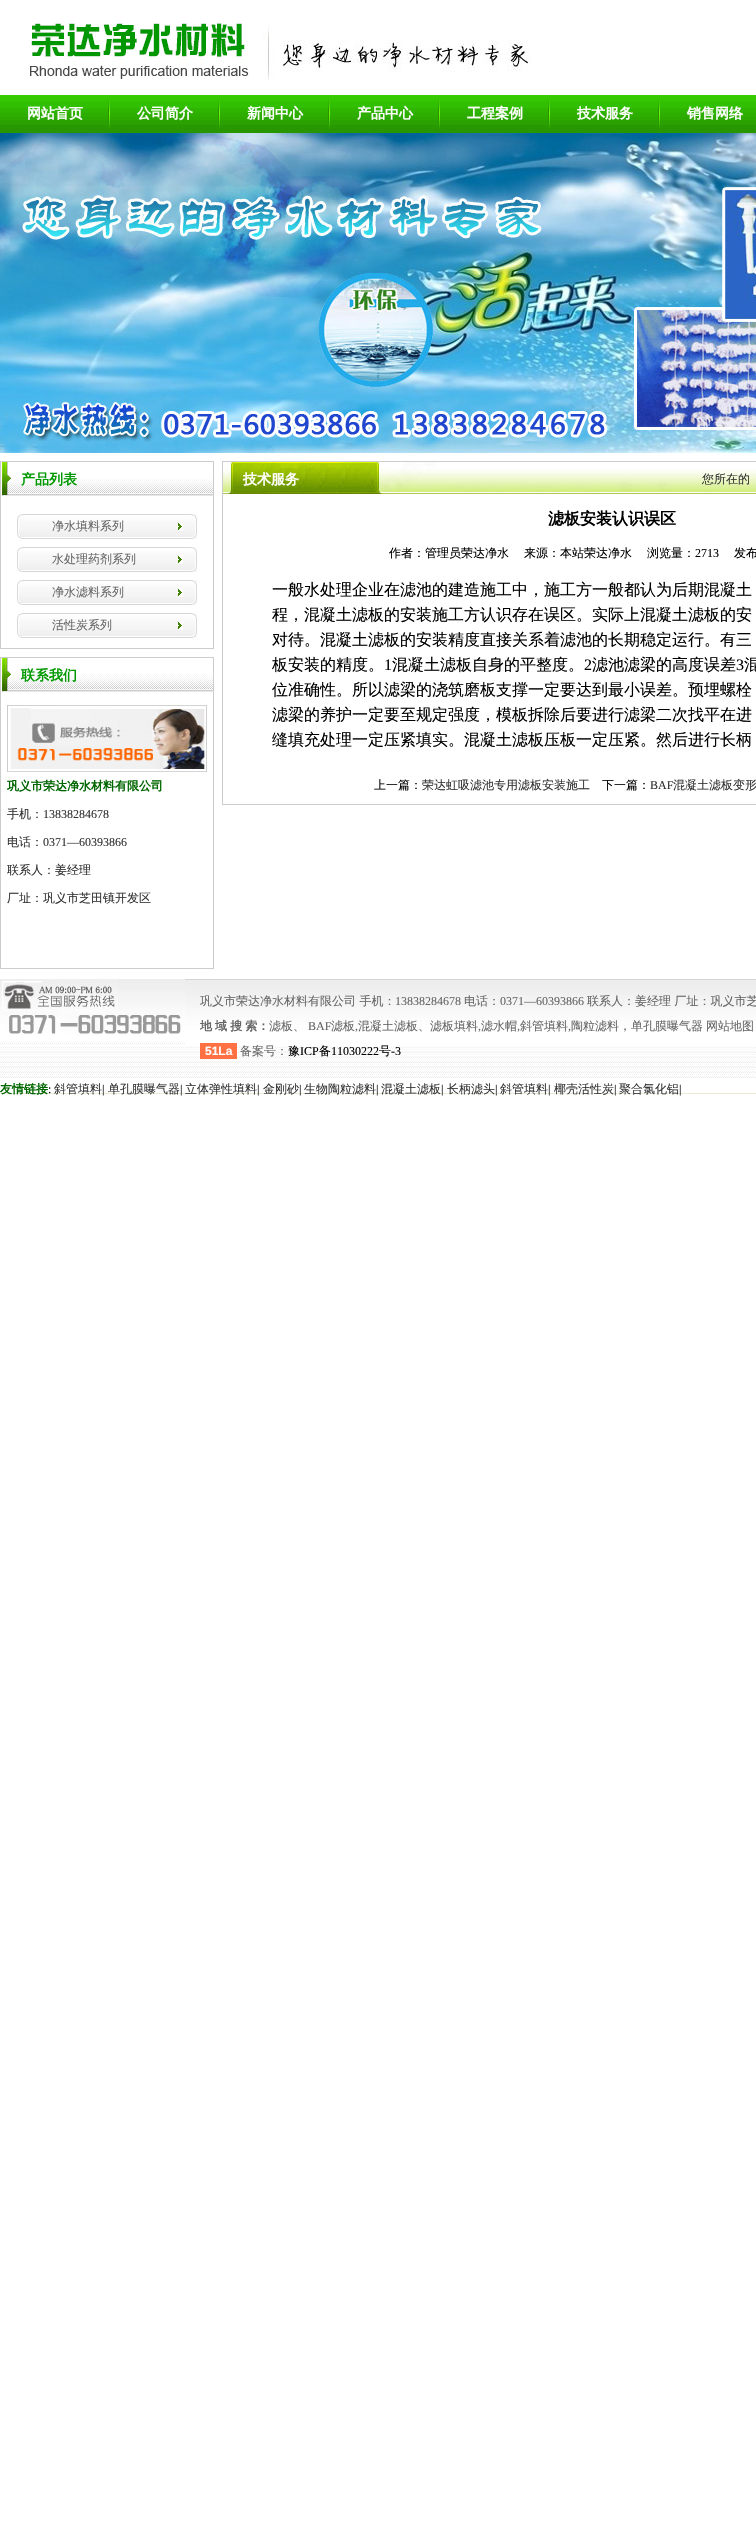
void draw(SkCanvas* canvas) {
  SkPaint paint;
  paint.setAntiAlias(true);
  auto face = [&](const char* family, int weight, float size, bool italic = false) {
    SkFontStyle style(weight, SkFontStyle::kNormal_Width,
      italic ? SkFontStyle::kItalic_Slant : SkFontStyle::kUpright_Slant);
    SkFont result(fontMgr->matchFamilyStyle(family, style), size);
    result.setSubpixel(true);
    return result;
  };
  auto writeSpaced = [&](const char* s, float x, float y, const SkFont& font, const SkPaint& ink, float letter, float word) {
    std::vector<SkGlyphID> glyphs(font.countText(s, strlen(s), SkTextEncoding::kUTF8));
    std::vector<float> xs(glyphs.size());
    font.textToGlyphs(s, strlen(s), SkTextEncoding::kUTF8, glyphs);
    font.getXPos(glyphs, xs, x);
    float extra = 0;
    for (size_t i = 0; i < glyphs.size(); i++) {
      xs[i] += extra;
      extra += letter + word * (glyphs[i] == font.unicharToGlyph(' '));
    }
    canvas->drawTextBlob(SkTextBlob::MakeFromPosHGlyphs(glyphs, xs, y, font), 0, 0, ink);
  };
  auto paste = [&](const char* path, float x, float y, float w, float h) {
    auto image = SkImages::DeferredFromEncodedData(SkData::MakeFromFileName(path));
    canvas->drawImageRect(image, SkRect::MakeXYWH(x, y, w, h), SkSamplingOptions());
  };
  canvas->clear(0xffffffff);
  paste("img/1.png", 29, 23, 502, 57);
  paste("img/2.png", 0, 95, 756, 38);
  paste("img/3.png", 108, 100, 2, 29);
  paste("img/3.png", 218, 100, 2, 29);
  paste("img/3.png", 328, 100, 2, 29);
  paste("img/3.png", 438, 100, 2, 29);
  paste("img/3.png", 548, 100, 2, 29);
  paste("img/3.png", 658, 100, 2, 29);
  paste("img/4.png", 0, 133, 756, 320);
  paint.setStroke(true);
  paint.setStrokeWidth(1);
  paint.setColor(0xffcccccc);
  canvas->drawRect(SkRect::MakeXYWH(0.5f, 461.5f, 213, 187), paint);
  paste("img/5.png", 2, 462, 211, 34);
  paste("img/6.png", 17, 514, 180, 25);
  paste("img/6.png", 17, 547, 180, 25);
  paste("img/6.png", 17, 580, 180, 25);
  paste("img/6.png", 17, 613, 180, 25);
  canvas->drawRect(SkRect::MakeXYWH(0.5f, 657.5f, 213, 311), paint);
  paste("img/5.png", 2, 658, 211, 34);
  paste("img/7.png", 7, 705, 200, 67);
  canvas->drawRect(SkRect::MakeXYWH(222.5f, 461.5f, 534, 343), paint);
  paste("img/8.png", 223, 462, 533, 32);
  paste("img/9.png", 0, 979, 756, 115);
  paste("img/10.png", 0, 979, 185, 66);
  paint.setStroke(false);
  paint.setColor(0xffff7043);
  canvas->drawRect(SkRect::MakeXYWH(200, 1043, 37, 16), paint);
  auto f0 = face("WenQuanYi Zen Hei", 700, 14);
  paint.setColor(0xffffffff);
  {
    const struct { const char* s; float x, y; } items[] = {
      {"网站首页", 27, 118},
      {"公司简介", 137, 118},
      {"新闻中心", 247, 118},
      {"产品中心", 357, 118},
      {"工程案例", 467, 118},
      {"技术服务", 577, 118},
      {"销售网络", 687, 118},
    };
    for (auto [s, x, y] : items) {
      canvas->drawString(s, x, y, f0, paint);
    }
  }
  paint.setColor(0xff009900);
  canvas->drawString("产品列表", 21, 484, f0, paint);
  auto f1 = face("WenQuanYi Zen Hei", 500, 12);
  paint.setColor(0xff666666);
  {
    const struct { const char* s; float x, y; } items[] = {
      {"净水填料系列", 52, 530},
      {"水处理药剂系列", 52, 563},
      {"净水滤料系列", 52, 596},
      {"活性炭系列", 52, 629},
    };
    for (auto [s, x, y] : items) {
      canvas->drawString(s, x, y, f1, paint);
    }
  }
  paint.setColor(0xff009900);
  canvas->drawString("联系我们", 21, 680, f0, paint);
  auto f2 = face("WenQuanYi Zen Hei", 700, 12);
  paint.setColor(0xff006600);
  canvas->drawString("巩义市荣达净水材料有限公司", 7, 790, f2, paint);
  paint.setColor(0xff333333);
  canvas->drawString("手机：", 7, 818, f1, paint);
  auto f3 = face("Liberation Serif", 400, 12);
  canvas->drawString("13838284678", 43, 818, f3, paint);
  canvas->drawString("电话：", 7, 846, f1, paint);
  canvas->drawString("0371—60393866", 43, 846, f3, paint);
  canvas->drawString("联系人：姜经理", 7, 874, f1, paint);
  canvas->drawString("厂址：巩义市芝田镇开发区", 7, 902, f1, paint);
  paint.setColor(0xffffffff);
  canvas->drawString("技术服务", 243, 484, f0, paint);
  paint.setColor(0xff333333);
  canvas->drawString("您所在的", 702, 483, f1, paint);
  auto f4 = face("WenQuanYi Zen Hei", 700, 16);
  paint.setColor(0xff000000);
  canvas->drawString("滤板安装认识误区", 548, 524, f4, paint);
  {
    const struct { const char* s; float x, y; } items[] = {
      {"作者：管理员荣达净水", 389, 557},
      {"来源：本站荣达净水", 524, 557},
      {"浏览量：", 647, 557},
    };
    for (auto [s, x, y] : items) {
      canvas->drawString(s, x, y, f1, paint);
    }
  }
  canvas->drawString("2713", 695, 557, f3, paint);
  canvas->drawString("发布", 734, 557, f1, paint);
  auto f5 = face("WenQuanYi Zen Hei", 500, 16);
  {
    const struct { const char* s; float x, y; } items[] = {
      {"一般水处理企业在滤池的建造施工中，施工方一般都认为后期混凝土", 272, 595},
      {"程，混凝土滤板的安装施工方认识存在误区。实际上混凝土滤板的安", 272, 620},
      {"对待。混凝土滤板的安装精度直接关系着滤池的长期稳定运行。有三", 272, 645},
      {"板安装的精度。", 272, 670},
    };
    for (auto [s, x, y] : items) {
      canvas->drawString(s, x, y, f5, paint);
    }
  }
  auto f6 = face("Liberation Serif", 400, 16);
  canvas->drawString("1", 384, 670, f6, paint);
  canvas->drawString("混凝土滤板自身的平整度。", 392, 670, f5, paint);
  canvas->drawString("2", 584, 670, f6, paint);
  canvas->drawString("滤池滤梁的高度误差", 592, 670, f5, paint);
  canvas->drawString("3", 736, 670, f6, paint);
  {
    const struct { const char* s; float x, y; } items[] = {
      {"混", 744, 670},
      {"位准确性。所以滤梁的浇筑磨板支撑一定要达到最小误差。预埋螺栓", 272, 695},
      {"滤梁的养护一定要至规定强度，模板拆除后要进行滤梁二次找平在进", 272, 720},
      {"缝填充处理一定压紧填实。混凝土滤板压板一定压紧。然后进行长柄", 272, 745},
    };
    for (auto [s, x, y] : items) {
      canvas->drawString(s, x, y, f5, paint);
    }
  }
  canvas->drawString("上一篇：", 374, 789, f1, paint);
  paint.setColor(0xff333333);
  canvas->drawString("荣达虹吸滤池专用滤板安装施工", 422, 789, f1, paint);
  paint.setColor(0xff000000);
  canvas->drawString("下一篇：", 602, 789, f1, paint);
  paint.setColor(0xff333333);
  canvas->drawString("BAF", 650, 789, f3, paint);
  canvas->drawString("混凝土滤板变形", 673, 789, f1, paint);
  paint.setColor(0xff666666);
  canvas->drawString("巩义市荣达净水材料有限公司 手机：", 200, 1005, f1, paint);
  canvas->drawString("13838284678", 395, 1005, f3, paint);
  canvas->drawString("电话：", 464, 1005, f1, paint);
  canvas->drawString("0371—60393866", 500, 1005, f3, paint);
  canvas->drawString("联系人：姜经理 厂址：巩义市芝", 587, 1005, f1, paint);
  writeSpaced("地 域 搜 索：", 200, 1030, f2, paint, 0, -0.5f);
  canvas->drawString("滤板、", 269, 1030, f1, paint);
  canvas->drawString("BAF", 308, 1030, f3, paint);
  canvas->drawString("滤板", 331, 1030, f1, paint);
  canvas->drawString(",", 355, 1030, f3, paint);
  canvas->drawString("混凝土滤板、滤板填料", 358, 1030, f1, paint);
  canvas->drawString(",", 478, 1030, f3, paint);
  canvas->drawString("滤水帽", 481, 1030, f1, paint);
  canvas->drawString(",", 517, 1030, f3, paint);
  canvas->drawString("斜管填料", 520, 1030, f1, paint);
  canvas->drawString(",", 568, 1030, f3, paint);
  canvas->drawString("陶粒滤料，单孔膜曝气器", 571, 1030, f1, paint);
  canvas->drawString("网站地图", 706, 1030, f1, paint);
  auto f7 = face("Liberation Sans", 700, 12);
  paint.setColor(0xffffffff);
  canvas->drawString("51La", 205, 1055, f7, paint);
  paint.setColor(0xff666666);
  canvas->drawString("备案号：", 240, 1055, f1, paint);
  paint.setColor(0xff000000);
  canvas->drawString("豫", 288, 1055, f1, paint);
  canvas->drawString("ICP", 300, 1055, f3, paint);
  canvas->drawString("备", 319, 1055, f1, paint);
  canvas->drawString("11030222", 331, 1055, f3, paint);
  canvas->drawString("号", 379, 1055, f1, paint);
  canvas->drawString("-3", 391, 1055, f3, paint);
  paint.setColor(0xff006600);
  canvas->drawString("友情链接", 0, 1093, f2, paint);
  paint.setColor(0xff000000);
  canvas->drawString(":", 48, 1093, f3, paint);
  paint.setColor(0xff333333);
  canvas->drawString("斜管填料", 54, 1093, f1, paint);
  paint.setColor(0xff000000);
  canvas->drawString("|", 102, 1093, f3, paint);
  paint.setColor(0xff333333);
  canvas->drawString("单孔膜曝气器", 108, 1093, f1, paint);
  paint.setColor(0xff000000);
  canvas->drawString("|", 180, 1093, f3, paint);
  paint.setColor(0xff333333);
  canvas->drawString("立体弹性填料", 185, 1093, f1, paint);
  paint.setColor(0xff000000);
  canvas->drawString("|", 257, 1093, f3, paint);
  paint.setColor(0xff333333);
  canvas->drawString("金刚砂", 263, 1093, f1, paint);
  paint.setColor(0xff000000);
  canvas->drawString("|", 299, 1093, f3, paint);
  paint.setColor(0xff333333);
  canvas->drawString("生物陶粒滤料", 304, 1093, f1, paint);
  paint.setColor(0xff000000);
  canvas->drawString("|", 376, 1093, f3, paint);
  paint.setColor(0xff333333);
  canvas->drawString("混凝土滤板", 381, 1093, f1, paint);
  paint.setColor(0xff000000);
  canvas->drawString("|", 441, 1093, f3, paint);
  paint.setColor(0xff333333);
  canvas->drawString("长柄滤头", 447, 1093, f1, paint);
  paint.setColor(0xff000000);
  canvas->drawString("|", 495, 1093, f3, paint);
  paint.setColor(0xff333333);
  canvas->drawString("斜管填料", 500, 1093, f1, paint);
  paint.setColor(0xff000000);
  canvas->drawString("|", 548, 1093, f3, paint);
  paint.setColor(0xff333333);
  canvas->drawString("椰壳活性炭", 554, 1093, f1, paint);
  paint.setColor(0xff000000);
  canvas->drawString("|", 614, 1093, f3, paint);
  paint.setColor(0xff333333);
  canvas->drawString("聚合氯化铝", 619, 1093, f1, paint);
  paint.setColor(0xff000000);
  canvas->drawString("|", 679, 1093, f3, paint);
}
